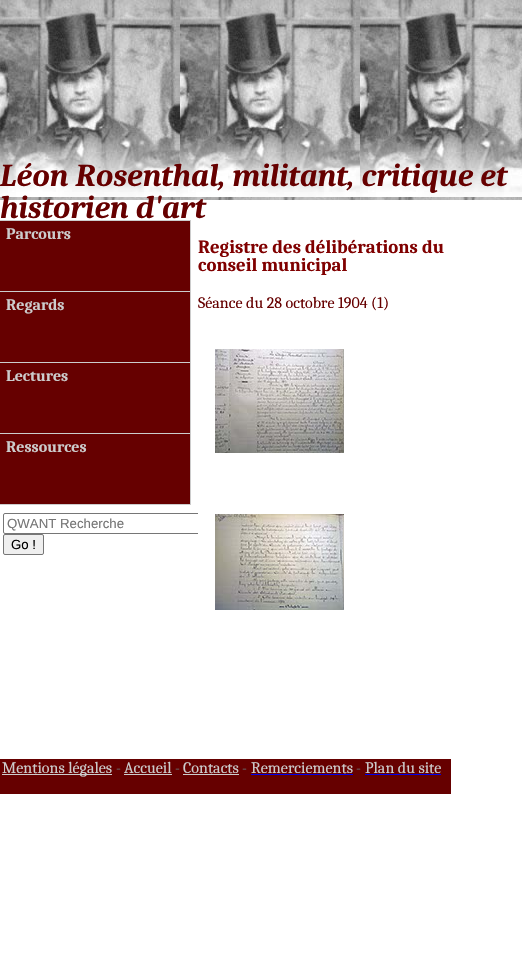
void draw(SkCanvas* canvas) {
  SkPaint paint;
  paint.setAntiAlias(true);
  auto face = [&](const char* family, int weight, float size, bool italic = false) {
    SkFontStyle style(weight, SkFontStyle::kNormal_Width,
      italic ? SkFontStyle::kItalic_Slant : SkFontStyle::kUpright_Slant);
    SkFont result(fontMgr->matchFamilyStyle(family, style), size);
    result.setSubpixel(true);
    return result;
  };
  auto paste = [&](const char* path, float x, float y, float w, float h) {
    auto image = SkImages::DeferredFromEncodedData(SkData::MakeFromFileName(path));
    canvas->drawImageRect(image, SkRect::MakeXYWH(x, y, w, h), SkSamplingOptions());
  };
  canvas->clear(0xffffffff);
  paste("img/1.png", 0, 0, 522, 200);
  {
    const struct { float x, y, w, h; SkColor color; } items[] = {
      {0, 220, 191, 285, 0xffcccccc},
      {0, 221, 190, 70, 0xff660000},
      {0, 292, 190, 70, 0xff660000},
      {0, 363, 190, 70, 0xff660000},
      {0, 434, 190, 70, 0xff660000},
    };
    for (auto [x, y, w, h, color] : items) {
      paint.setColor(color);
      canvas->drawRect(SkRect::MakeXYWH(x, y, w, h), paint);
    }
  }
  paste("img/2.png", 215, 349, 129, 104);
  paint.setStroke(true);
  paint.setStrokeWidth(1);
  paint.setColor(0xff767676);
  canvas->drawRoundRect(SkRect::MakeXYWH(3.5f, 513.5f, 224, 20), 1.5f, 1.5f, paint);
  paint.setStroke(false);
  paint.setColor(0xffffffff);
  canvas->drawRect(SkRect::MakeXYWH(198, 513, 30, 21), paint);
  paste("img/3.png", 215, 514, 129, 96);
  {
    const struct { float x, y, w, h; SkColor color; } items[] = {
      {0, 759, 451, 35, 0xff660000},
      {2, 774, 110, 1, 0xffcccccc},
      {124, 774, 48, 1, 0xffcccccc},
      {183, 774, 56, 1, 0xffcccccc},
      {251, 774, 102, 1, 0xff0000ee},
      {365, 774, 76, 1, 0xff0000ee},
    };
    for (auto [x, y, w, h, color] : items) {
      paint.setColor(color);
      canvas->drawRect(SkRect::MakeXYWH(x, y, w, h), paint);
    }
  }
  paint.setColor(0xffefefef);
  canvas->drawRoundRect(SkRect::MakeXYWH(3.5f, 534.5f, 40, 20), 1.5f, 1.5f, paint);
  paint.setStroke(true);
  paint.setColor(0xff767676);
  canvas->drawRoundRect(SkRect::MakeXYWH(3.5f, 534.5f, 40, 20), 1.5f, 1.5f, paint);
  auto f0 = face("Caladea", 700, 32, true);
  paint.setStroke(false);
  paint.setColor(0xff660000);
  canvas->drawString("Léon Rosenthal, militant, critique et", 0, 186, f0, paint);
  canvas->drawString("historien d'art", 0, 218, f0, paint);
  auto f1 = face("Caladea", 700, 16);
  paint.setColor(0xffcccccc);
  {
    const struct { const char* s; float x, y; } items[] = {
      {"Parcours", 6, 239},
      {"Regards", 6, 310},
      {"Lectures", 6, 381},
      {"Ressources", 6, 452},
    };
    for (auto [s, x, y] : items) {
      canvas->drawString(s, x, y, f1, paint);
    }
  }
  auto f2 = face("Caladea", 700, 18.75f);
  paint.setColor(0xff800000);
  canvas->drawString("Registre des délibérations du", 198, 253, f2, paint);
  canvas->drawString("conseil municipal", 198, 271, f2, paint);
  auto f3 = face("Caladea", 400, 16);
  paint.setColor(0xff660000);
  canvas->drawString("Séance du 28 octobre 1904 (1)", 198, 308, f3, paint);
  paint.setColor(0xffcccccc);
  canvas->drawString("Mentions légales", 2, 773, f3, paint);
  auto f4 = face("Caladea", 400, 15);
  paint.setColor(0xff666666);
  canvas->drawString("-", 116, 773, f4, paint);
  paint.setColor(0xffcccccc);
  canvas->drawString("Accueil", 124, 773, f3, paint);
  paint.setColor(0xff666666);
  canvas->drawString("-", 175, 773, f4, paint);
  paint.setColor(0xffcccccc);
  canvas->drawString("Contacts", 183, 773, f3, paint);
  paint.setColor(0xff666666);
  canvas->drawString("-", 242, 773, f4, paint);
  paint.setColor(0xffcccccc);
  canvas->drawString("Remerciements", 251, 773, f3, paint);
  paint.setColor(0xff666666);
  canvas->drawString("-", 356, 773, f4, paint);
  paint.setColor(0xffcccccc);
  canvas->drawString("Plan du site", 365, 773, f3, paint);
  auto f5 = face("Liberation Sans", 400, 13.25f);
  paint.setColor(0xff757575);
  canvas->drawString("QWANT Recherche", 7, 528, f5, paint);
  paint.setColor(0xff000000);
  canvas->drawString("Go !", 11, 549, f5, paint);
}
